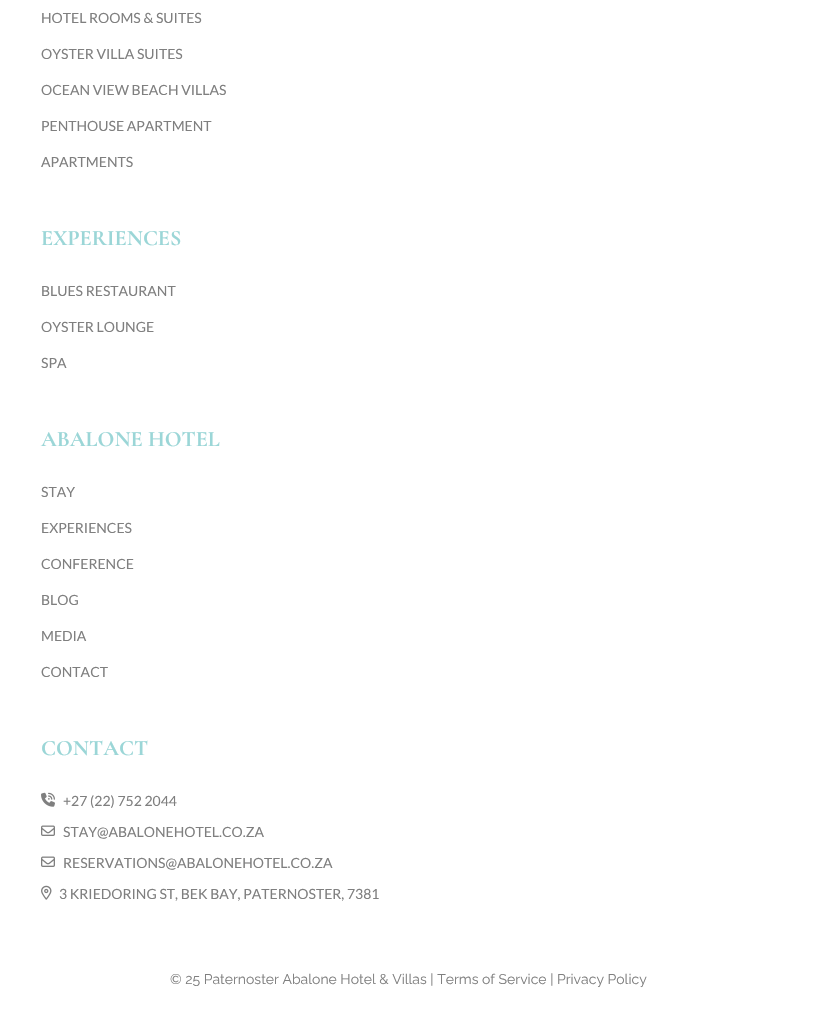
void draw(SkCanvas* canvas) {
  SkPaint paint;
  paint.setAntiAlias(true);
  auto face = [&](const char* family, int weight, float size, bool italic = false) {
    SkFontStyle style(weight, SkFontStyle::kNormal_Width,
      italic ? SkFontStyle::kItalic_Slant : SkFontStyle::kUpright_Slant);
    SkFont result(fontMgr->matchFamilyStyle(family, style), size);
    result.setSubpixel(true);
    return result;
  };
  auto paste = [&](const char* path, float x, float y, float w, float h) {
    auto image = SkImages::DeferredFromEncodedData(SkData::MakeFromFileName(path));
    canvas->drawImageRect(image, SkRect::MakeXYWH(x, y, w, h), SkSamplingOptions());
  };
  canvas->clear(0xffffffff);
  paste("img/1.png", 41, 792, 14, 15);
  paste("img/2.png", 41, 825, 14, 11);
  paste("img/2.png", 41, 856, 14, 11);
  paste("img/3.png", 41, 885, 11, 15);
  auto f0 = face("Lato", 400, 14);
  paint.setColor(0xff7f7f7f);
  {
    const struct { const char* s; float x, y; } items[] = {
      {"HOTEL ROOMS & SUITES", 41, 23},
      {"OYSTER VILLA SUITES", 41, 59},
      {"OCEAN VIEW BEACH VILLAS", 41, 95},
      {"PENTHOUSE APARTMENT", 41, 131},
      {"APARTMENTS", 41, 167},
    };
    for (auto [s, x, y] : items) {
      canvas->drawString(s, x, y, f0, paint);
    }
  }
  auto f1 = face("Cormorant Garamond", 700, 22);
  paint.setColor(0xff9bd6d7);
  canvas->drawString("EXPERIENCES", 41, 245, f1, paint);
  paint.setColor(0xff7f7f7f);
  {
    const struct { const char* s; float x, y; } items[] = {
      {"BLUES RESTAURANT", 41, 296},
      {"OYSTER LOUNGE", 41, 332},
      {"SPA", 41, 368},
    };
    for (auto [s, x, y] : items) {
      canvas->drawString(s, x, y, f0, paint);
    }
  }
  paint.setColor(0xff9bd6d7);
  canvas->drawString("ABALONE HOTEL", 41, 446, f1, paint);
  paint.setColor(0xff7f7f7f);
  {
    const struct { const char* s; float x, y; } items[] = {
      {"STAY", 41, 497},
      {"EXPERIENCES", 41, 533},
      {"CONFERENCE", 41, 569},
      {"BLOG", 41, 605},
      {"MEDIA", 41, 641},
      {"CONTACT", 41, 677},
    };
    for (auto [s, x, y] : items) {
      canvas->drawString(s, x, y, f0, paint);
    }
  }
  paint.setColor(0xff9bd6d7);
  canvas->drawString("CONTACT", 41, 755, f1, paint);
  paint.setColor(0xff7f7f7f);
  {
    const struct { const char* s; float x, y; } items[] = {
      {"+27 (22) 752 2044", 63, 806},
      {"STAY@ABALONEHOTEL.CO.ZA", 63, 837},
      {"RESERVATIONS@ABALONEHOTEL.CO.ZA", 63, 868},
      {"3 KRIEDORING ST, BEK BAY, PATERNOSTER, 7381", 59, 899},
    };
    for (auto [s, x, y] : items) {
      canvas->drawString(s, x, y, f0, paint);
    }
  }
  auto f2 = face("Raleway", 400, 14);
  canvas->drawString("© 25 Paternoster Abalone Hotel & Villas | Terms of Service | Privacy Policy", 170, 984, f2, paint);
}
